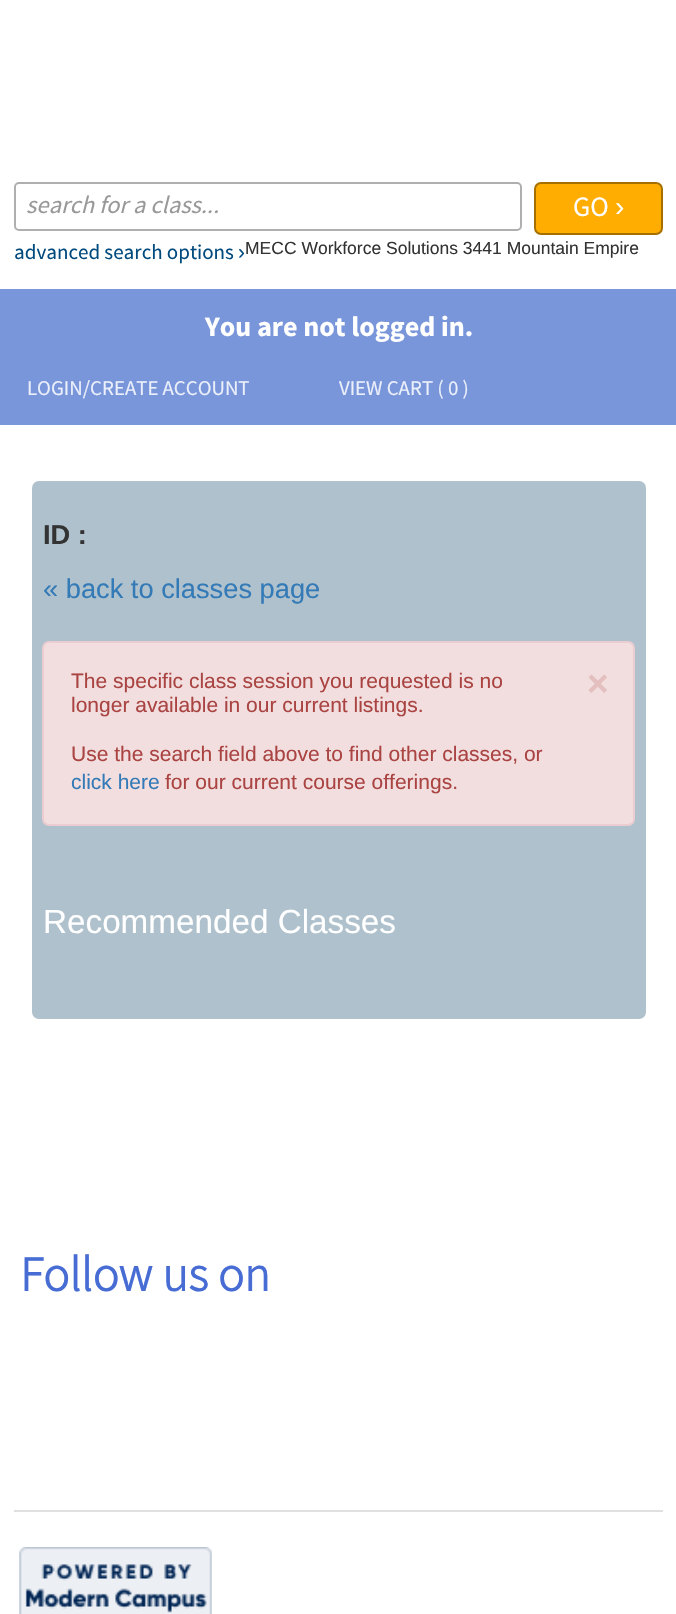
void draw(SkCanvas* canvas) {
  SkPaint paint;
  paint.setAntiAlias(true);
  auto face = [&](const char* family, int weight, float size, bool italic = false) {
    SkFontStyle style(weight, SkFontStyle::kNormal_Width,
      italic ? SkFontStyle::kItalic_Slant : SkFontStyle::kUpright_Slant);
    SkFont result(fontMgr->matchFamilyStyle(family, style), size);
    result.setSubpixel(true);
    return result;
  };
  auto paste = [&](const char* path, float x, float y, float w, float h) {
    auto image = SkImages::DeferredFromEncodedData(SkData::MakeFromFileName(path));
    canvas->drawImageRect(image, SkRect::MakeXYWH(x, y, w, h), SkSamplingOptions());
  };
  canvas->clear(0xffffffff);
  paint.setStroke(true);
  paint.setStrokeWidth(2);
  paint.setColor(0xffafafaf);
  canvas->drawRoundRect(SkRect::MakeXYWH(15, 183, 506, 47), 4, 4, paint);
  paint.setStroke(false);
  paint.setColor(0xffffad00);
  canvas->drawRoundRect(SkRect::MakeXYWH(535, 183, 127, 51), 6, 6, paint);
  paint.setStroke(true);
  paint.setColor(0xffa67000);
  canvas->drawRoundRect(SkRect::MakeXYWH(535, 183, 127, 51), 6, 6, paint);
  paint.setStroke(false);
  paint.setColor(0xff7a96db);
  canvas->drawRect(SkRect::MakeXYWH(0, 289, 676, 136), paint);
  paint.setColor(0xffafc1cc);
  canvas->drawRoundRect(SkRect::MakeXYWH(32, 481, 614, 538), 7, 7, paint);
  paint.setColor(0xfff2dede);
  canvas->drawRoundRect(SkRect::MakeXYWH(43, 642, 591, 183), 6, 6, paint);
  paint.setStroke(true);
  paint.setColor(0xffebccd1);
  canvas->drawRoundRect(SkRect::MakeXYWH(43, 642, 591, 183), 6, 6, paint);
  paint.setStroke(false);
  paint.setColor(0xffe0e0e0);
  canvas->drawRect(SkRect::MakeXYWH(14, 1510, 649, 2), paint);
  paste("img/1.png", 19, 1547, 193, 67);
  auto f0 = face("Source Sans Pro", 400, 24.5f, true);
  paint.setColor(0xff999999);
  canvas->drawString("search for a class...", 26, 213, f0, paint);
  auto f1 = face("Source Sans Pro", 400, 28);
  paint.setColor(0xffffffff);
  canvas->drawString("GO", 573, 216, f1, paint);
  auto f2 = face("Liberation Sans", 400, 28);
  canvas->drawString("›", 615, 216, f2, paint);
  auto f3 = face("Source Sans Pro", 400, 21);
  paint.setColor(0xff004a7e);
  canvas->drawString("advanced search options", 14, 259, f3, paint);
  auto f4 = face("Liberation Sans", 400, 21);
  canvas->drawString("›", 238, 259, f4, paint);
  auto f5 = face("Source Sans Pro", 700, 28);
  paint.setColor(0xffffffff);
  canvas->drawString("You are not logged in.", 205, 336, f5, paint);
  paint.setColor(0xffeaeffa);
  canvas->drawString("LOGIN/CREATE ACCOUNT", 27, 395, f3, paint);
  canvas->drawString("VIEW CART ( 0 )", 339, 395, f3, paint);
  auto f6 = face("Liberation Sans", 700, 27.25f);
  paint.setColor(0xff333333);
  canvas->drawString("ID :", 43, 544, f6, paint);
  auto f7 = face("Liberation Sans", 400, 27.25f);
  paint.setColor(0xff337ab7);
  canvas->drawString("« back to classes page", 43, 598, f7, paint);
  paint.setColor(0xffa94442);
  canvas->drawString("The specific class session you requested is no", 71, 688, f4, paint);
  auto f8 = face("Liberation Sans", 700, 37);
  paint.setColor(0xffe3bfbf);
  canvas->drawString("×", 587, 696, f8, paint);
  paint.setColor(0xffa94442);
  canvas->drawString("longer available in our current listings.", 71, 712, f4, paint);
  canvas->drawString("Use the search field above to find other classes, or", 71, 761, f4, paint);
  paint.setColor(0xff337ab7);
  canvas->drawString("click here", 71, 789, f4, paint);
  paint.setColor(0xffa94442);
  canvas->drawString("for our current course offerings.", 165, 789, f4, paint);
  auto f9 = face("Liberation Sans", 400, 33.25f);
  paint.setColor(0xffffffff);
  canvas->drawString("Recommended Classes", 43, 933, f9, paint);
  auto f10 = face("Liberation Sans", 400, 17.5f);
  paint.setColor(0xff333333);
  canvas->drawString("MECC Workforce Solutions 3441 Mountain Empire", 245, 254, f10, paint);
  auto f11 = face("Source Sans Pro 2", 700, 49);
  paint.setColor(0xff476dd5);
  canvas->drawString("Follow us on", 20, 1291, f11, paint);
}
